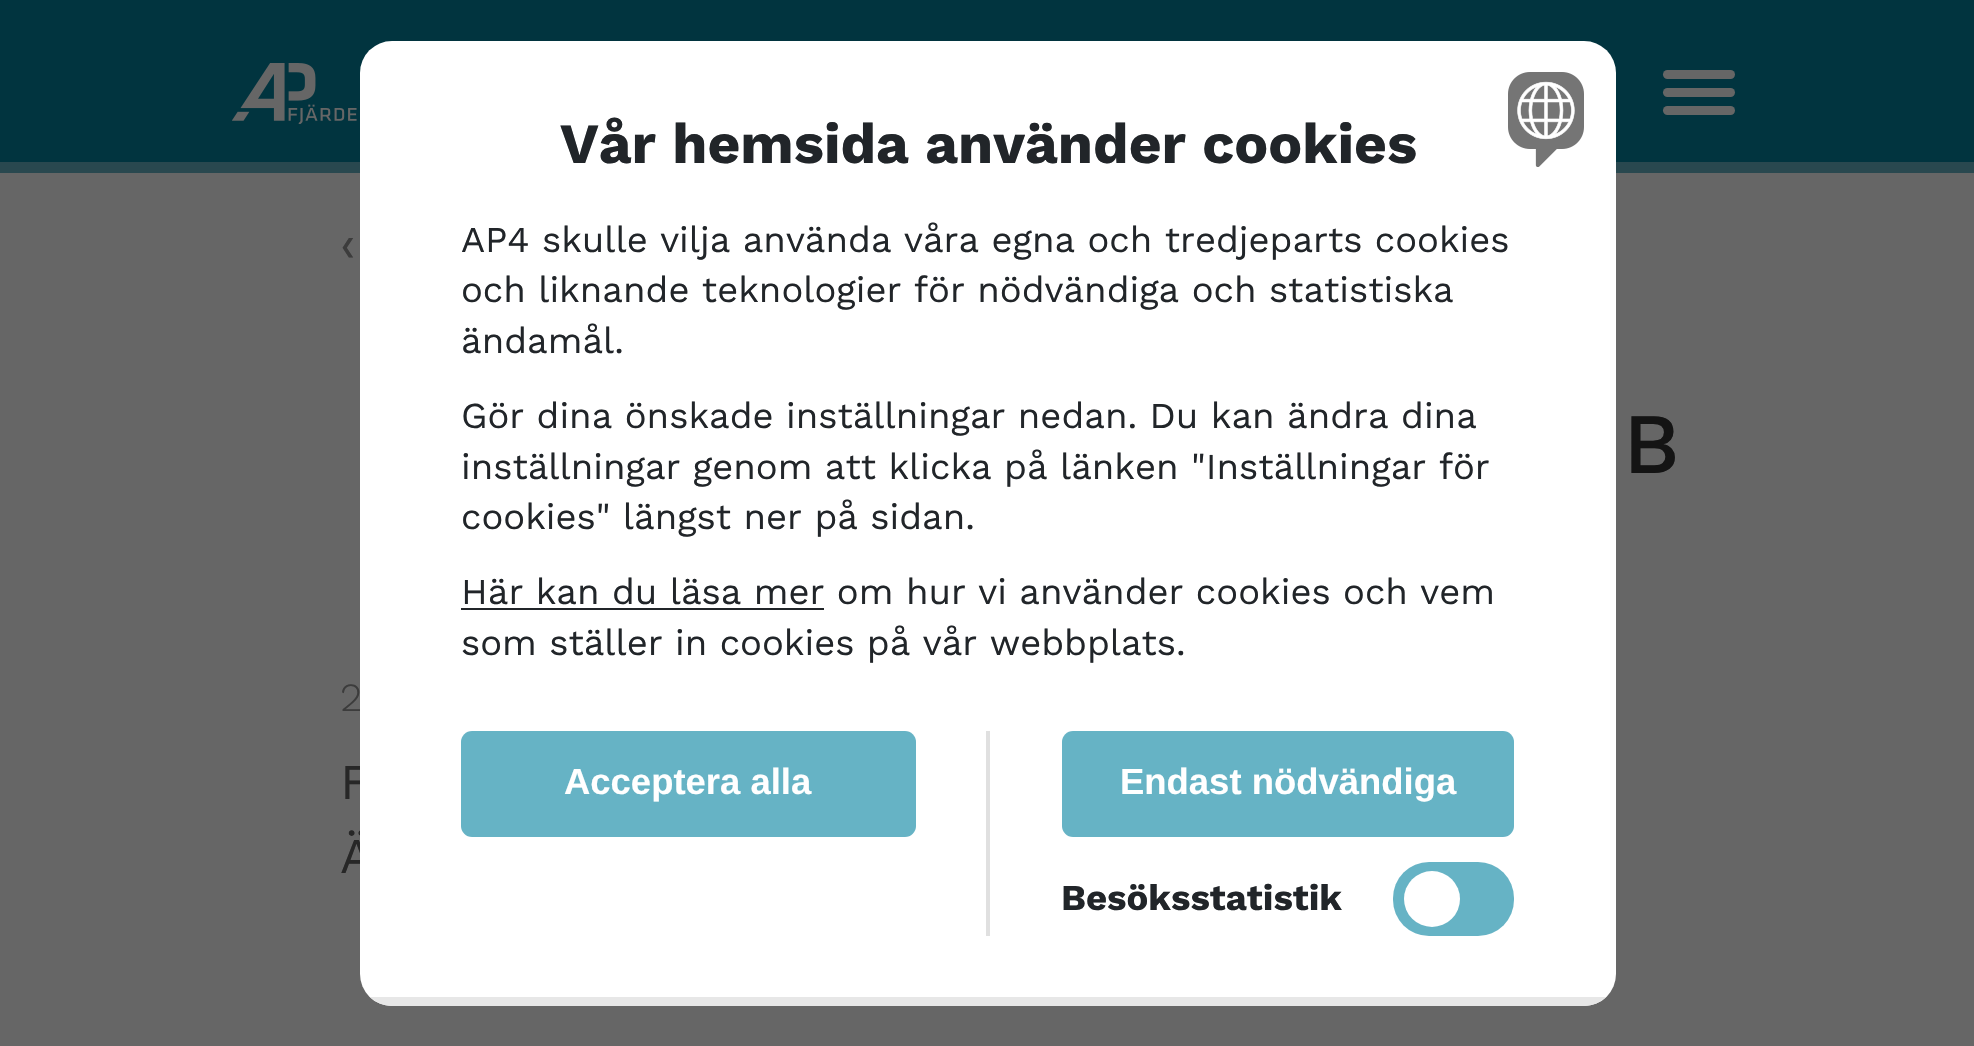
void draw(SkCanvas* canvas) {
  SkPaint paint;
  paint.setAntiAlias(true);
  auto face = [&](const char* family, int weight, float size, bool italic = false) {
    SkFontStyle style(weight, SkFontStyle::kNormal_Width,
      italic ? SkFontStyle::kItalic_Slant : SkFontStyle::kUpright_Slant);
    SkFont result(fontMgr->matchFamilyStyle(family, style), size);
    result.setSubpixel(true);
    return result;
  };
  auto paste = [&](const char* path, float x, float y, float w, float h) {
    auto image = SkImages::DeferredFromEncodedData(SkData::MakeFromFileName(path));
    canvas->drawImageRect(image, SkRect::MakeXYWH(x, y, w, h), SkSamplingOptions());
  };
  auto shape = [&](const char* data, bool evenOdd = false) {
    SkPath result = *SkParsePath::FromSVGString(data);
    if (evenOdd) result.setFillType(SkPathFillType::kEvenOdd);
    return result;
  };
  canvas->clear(0xff01343f);
  paint.setColor(0xff29484f);
  canvas->drawRect(SkRect::MakeXYWH(0, 162, 1974, 11), paint);
  paste("img/2.png", 232, 63, 125, 61);
  paint.setColor(0xff666666);
  canvas->drawRoundRect(SkRect::MakeXYWH(1663, 70, 72, 9), 4.5f, 4.5f, paint);
  canvas->drawRoundRect(SkRect::MakeXYWH(1663, 88, 72, 9), 4.5f, 4.5f, paint);
  canvas->drawRoundRect(SkRect::MakeXYWH(1663, 106, 72, 9), 4.5f, 4.5f, paint);
  canvas->drawRect(SkRect::MakeXYWH(0, 173, 1974, 873), paint);
  auto f0 = face("Work Sans", 400, 50);
  paint.setColor(0xff3c3c3c);
  canvas->drawString("‹", 340, 261, f0, paint);
  auto f1 = face("Work Sans", 500, 86);
  paint.setColor(0xff141414);
  canvas->drawString("B", 1623, 473, f1, paint);
  auto f2 = face("Work Sans", 300, 40);
  paint.setColor(0xff3c3c3c);
  canvas->drawString("2", 340, 711, f2, paint);
  paint.setColor(0xff272727);
  canvas->drawString("F", 340, 799, f0, paint);
  canvas->drawString("Ä", 340, 873, f0, paint);
  paint.setColor(0xffffffff);
  canvas->drawRoundRect(SkRect::MakeXYWH(360, 41, 1256, 965), 32, 32, paint);
  paste("img/1.png", 1508, 72, 76, 95);
  paint.setColor(0xff66b3c5);
  canvas->drawRoundRect(SkRect::MakeXYWH(1393, 862, 121, 74), 36, 36, paint);
  paint.setColor(0xffffffff);
  canvas->drawCircle(1432, 899, 28, paint);
  auto f3 = face("Work Sans", 700, 36.45f);
  paint.setColor(0xff212529);
  canvas->drawString("Besöksstatistik", 1061, 910, f3, paint);
  paint.setColor(0xff66b3c5);
  canvas->drawRoundRect(SkRect::MakeXYWH(1062, 731, 452, 106), 11, 11, paint);
  auto f4 = face("Liberation Sans", 700, 36.45f);
  paint.setColor(0xffffffff);
  canvas->drawString("Endast nödvändiga", 1120, 794, f4, paint);
  paint.setColor(0xff66b3c5);
  canvas->drawRoundRect(SkRect::MakeXYWH(461, 731, 455, 106), 11, 11, paint);
  paint.setColor(0xffffffff);
  canvas->drawString("Acceptera alla", 564, 794, f4, paint);
  canvas->save();
  canvas->clipPath(shape("M392 41H1584C1601.5 41 1616 55.5 1616 73V974C1616 991.5 1601.5 1006 1584 1006H392C374.5 1006 360 991.5 360 974V73C360 55.5 374.5 41 392 41Z"), true);
  paint.setColor(0xffe7e7e7);
  canvas->drawRect(SkRect::MakeXYWH(370, 997, 1236, 9), paint);
  canvas->restore();
  auto f5 = face("Work Sans", 400, 36.45f);
  paint.setColor(0xff212529);
  canvas->drawString("som ställer in cookies på vår webbplats.", 461, 655, f5, paint);
  canvas->drawString("Här kan du läsa mer om hur vi använder cookies och vem", 461, 604, f5, paint);
  canvas->drawRect(SkRect::MakeXYWH(461, 608, 363, 2), paint);
  {
    const struct { const char* s; float x, y; } items[] = {
      {"cookies\" längst ner på sidan.", 461, 529},
      {"inställningar genom att klicka på länken \"Inställningar för", 461, 479},
      {"Gör dina önskade inställningar nedan. Du kan ändra dina", 461, 428},
      {"ändamål.", 461, 353},
      {"och liknande teknologier för nödvändiga och statistiska", 461, 302},
      {"AP4 skulle vilja använda våra egna och tredjeparts cookies", 461, 252},
    };
    for (auto [s, x, y] : items) {
      canvas->drawString(s, x, y, f5, paint);
    }
  }
  paint.setColor(0xffe0e0e0);
  canvas->drawRect(SkRect::MakeXYWH(986, 731, 4, 205), paint);
  auto f6 = face("Work Sans", 700, 56.75f);
  paint.setColor(0xff212529);
  canvas->drawString("Vår hemsida använder cookies", 560, 163, f6, paint);
}
